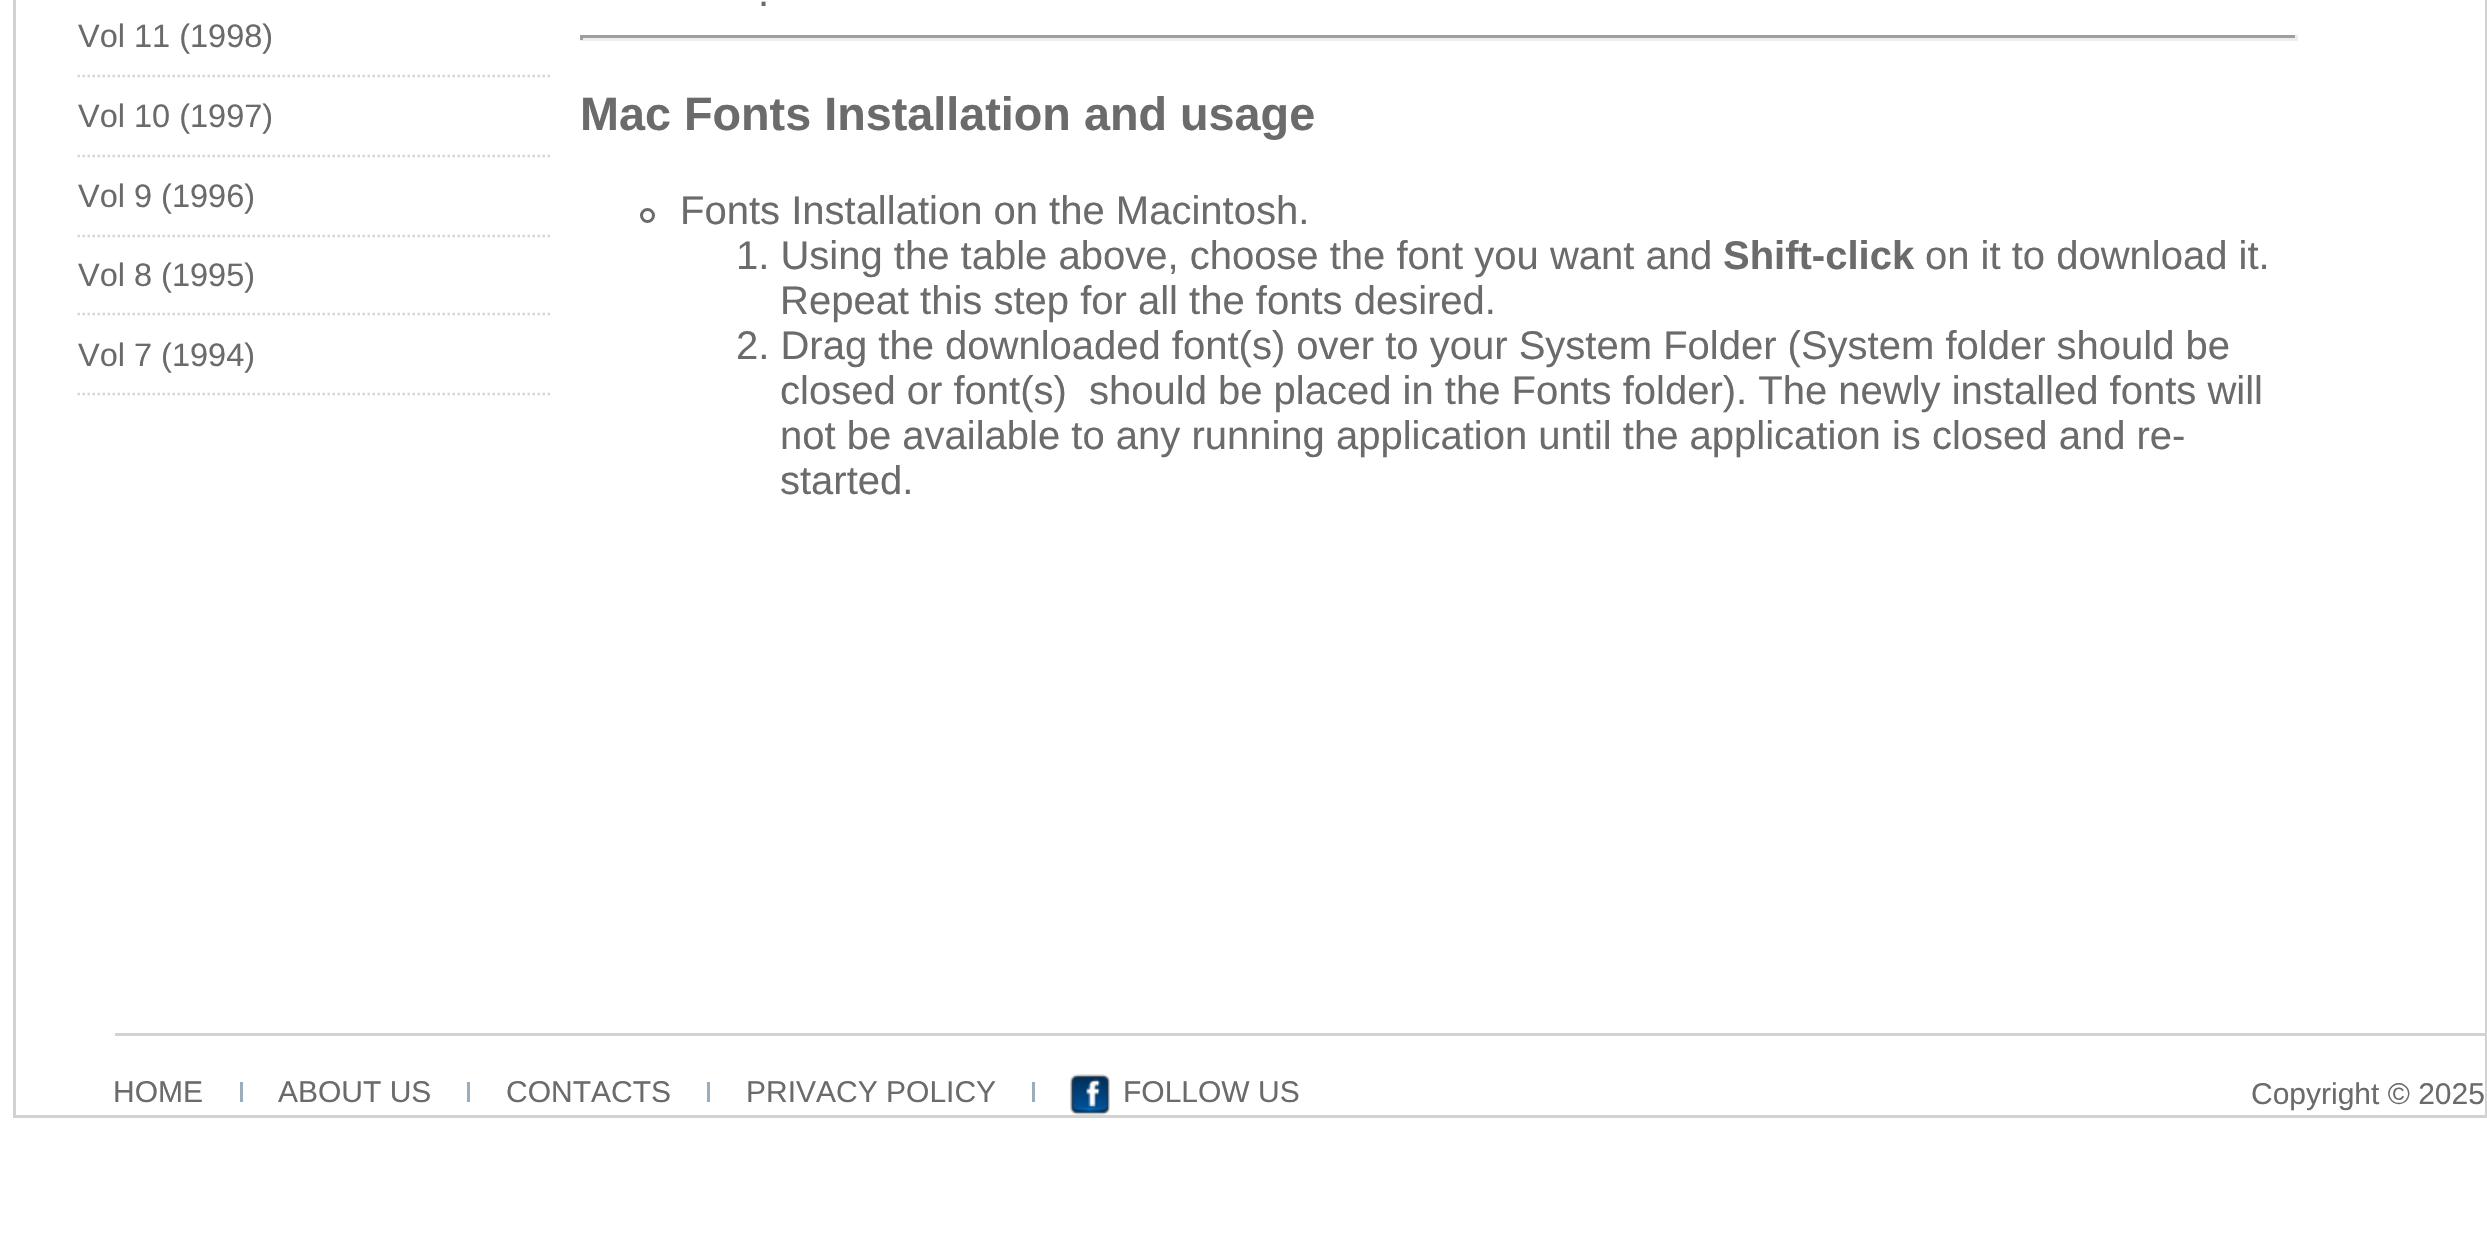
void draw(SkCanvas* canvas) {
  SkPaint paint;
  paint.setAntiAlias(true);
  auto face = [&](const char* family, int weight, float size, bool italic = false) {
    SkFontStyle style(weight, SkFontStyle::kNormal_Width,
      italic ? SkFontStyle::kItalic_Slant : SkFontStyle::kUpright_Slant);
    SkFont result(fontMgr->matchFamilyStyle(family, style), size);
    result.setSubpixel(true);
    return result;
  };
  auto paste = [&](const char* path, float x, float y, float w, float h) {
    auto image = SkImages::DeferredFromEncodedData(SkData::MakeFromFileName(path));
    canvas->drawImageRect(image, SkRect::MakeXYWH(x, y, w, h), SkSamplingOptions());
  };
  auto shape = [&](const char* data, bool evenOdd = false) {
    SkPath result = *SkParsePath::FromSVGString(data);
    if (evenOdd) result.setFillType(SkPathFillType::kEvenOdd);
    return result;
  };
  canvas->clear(0xffffffff);
  paint.setStroke(true);
  paint.setStrokeWidth(3);
  paint.setColor(0xffd2d2d2);
  canvas->drawRect(SkRect::MakeXYWH(14.5f, -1.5f, 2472, 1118), paint);
  paint.setStrokeWidth(2.5f);
  paint.setColor(0xffd6d6d6);
  paint.setPathEffect(SkDashPathEffect::Make({{2.5f, 2.5f}}, 0));
  canvas->drawPath(shape("M77.5 76H552.5"), paint);
  paint.setPathEffect(nullptr);
  paint.setPathEffect(SkDashPathEffect::Make({{2.5f, 2.5f}}, 0));
  canvas->drawPath(shape("M77.5 156H552.5"), paint);
  paint.setPathEffect(nullptr);
  paint.setPathEffect(SkDashPathEffect::Make({{2.5f, 2.5f}}, 0));
  canvas->drawPath(shape("M77.5 236H552.5"), paint);
  paint.setPathEffect(nullptr);
  paint.setPathEffect(SkDashPathEffect::Make({{2.5f, 2.5f}}, 0));
  canvas->drawPath(shape("M77.5 314H552.5"), paint);
  paint.setPathEffect(nullptr);
  paint.setPathEffect(SkDashPathEffect::Make({{2.5f, 2.5f}}, 0));
  canvas->drawPath(shape("M77.5 394H552.5"), paint);
  paint.setPathEffect(nullptr);
  paint.setStroke(false);
  {
    const struct { float x, y, w, h; SkColor color; } items[] = {
      {580, 35, 1718, 3, 0xff9f9f9f},
      {2295, 35, 3, 5, 0xffeeeeee},
      {580, 38, 1718, 3, 0xffeeeeee},
      {580, 35, 3, 5, 0xff9f9f9f},
    };
    for (auto [x, y, w, h, color] : items) {
      paint.setColor(color);
      canvas->drawRect(SkRect::MakeXYWH(x, y, w, h), paint);
    }
  }
  paint.setStroke(true);
  paint.setStrokeWidth(3);
  paint.setColor(0xff6b6b6b);
  canvas->drawCircle(647.5f, 215.5f, 6, paint);
  paint.setStroke(false);
  {
    const struct { float x, y, w, h; SkColor color; } items[] = {
      {115, 1033, 2370, 3, 0xffd2d2d2},
      {240, 1082, 3, 20, 0xff99adbd},
      {467, 1082, 3, 20, 0xff99adbd},
      {707, 1082, 3, 20, 0xff99adbd},
      {1032, 1082, 3, 20, 0xff99adbd},
    };
    for (auto [x, y, w, h, color] : items) {
      paint.setColor(color);
      canvas->drawRect(SkRect::MakeXYWH(x, y, w, h), paint);
    }
  }
  paste("img/1.png", 1070, 1074, 40, 41);
  auto f0 = face("Liberation Sans", 400, 32.5f);
  paint.setColor(0xff6b6b6b);
  {
    const struct { const char* s; float x, y; } items[] = {
      {"Vol 11 (1998)", 78, 47},
      {"Vol 10 (1997)", 78, 127},
      {"Vol 9 (1996)", 78, 207},
      {"Vol 8 (1995)", 78, 286},
      {"Vol 7 (1994)", 78, 366},
    };
    for (auto [s, x, y] : items) {
      canvas->drawString(s, x, y, f0, paint);
    }
  }
  auto f1 = face("Liberation Sans", 400, 40);
  canvas->drawString(".", 758, 6, f1, paint);
  auto f2 = face("Liberation Sans", 700, 46.75f);
  canvas->drawString("Mac Fonts Installation and usage", 580, 130, f2, paint);
  canvas->drawString("Fonts Installation on the Macintosh.", 680, 224, f1, paint);
  canvas->drawString("1. Using the table above, choose the font you want and", 736, 269, f1, paint);
  auto f3 = face("Liberation Sans", 700, 40);
  canvas->drawString("Shift-click", 1723, 269, f3, paint);
  {
    const struct { const char* s; float x, y; } items[] = {
      {"on it to download it.", 1925, 269},
      {"Repeat this step for all the fonts desired.", 780, 314},
      {"2. Drag the downloaded font(s) over to your System Folder (System folder should be", 736, 359},
      {"closed or font(s)  should be placed in the Fonts folder). The newly installed fonts will", 780, 404},
      {"not be available to any running application until the application is closed and re-", 780, 449},
      {"started.", 780, 494},
    };
    for (auto [s, x, y] : items) {
      canvas->drawString(s, x, y, f1, paint);
    }
  }
  auto f4 = face("Liberation Sans", 400, 30);
  {
    const struct { const char* s; float x, y; } items[] = {
      {"HOME", 113, 1102},
      {"ABOUT US", 278, 1102},
      {"CONTACTS", 506, 1102},
      {"PRIVACY POLICY", 746, 1102},
      {"FOLLOW US", 1123, 1102},
      {"Copyright © 2025", 2251, 1104},
    };
    for (auto [s, x, y] : items) {
      canvas->drawString(s, x, y, f4, paint);
    }
  }
}
